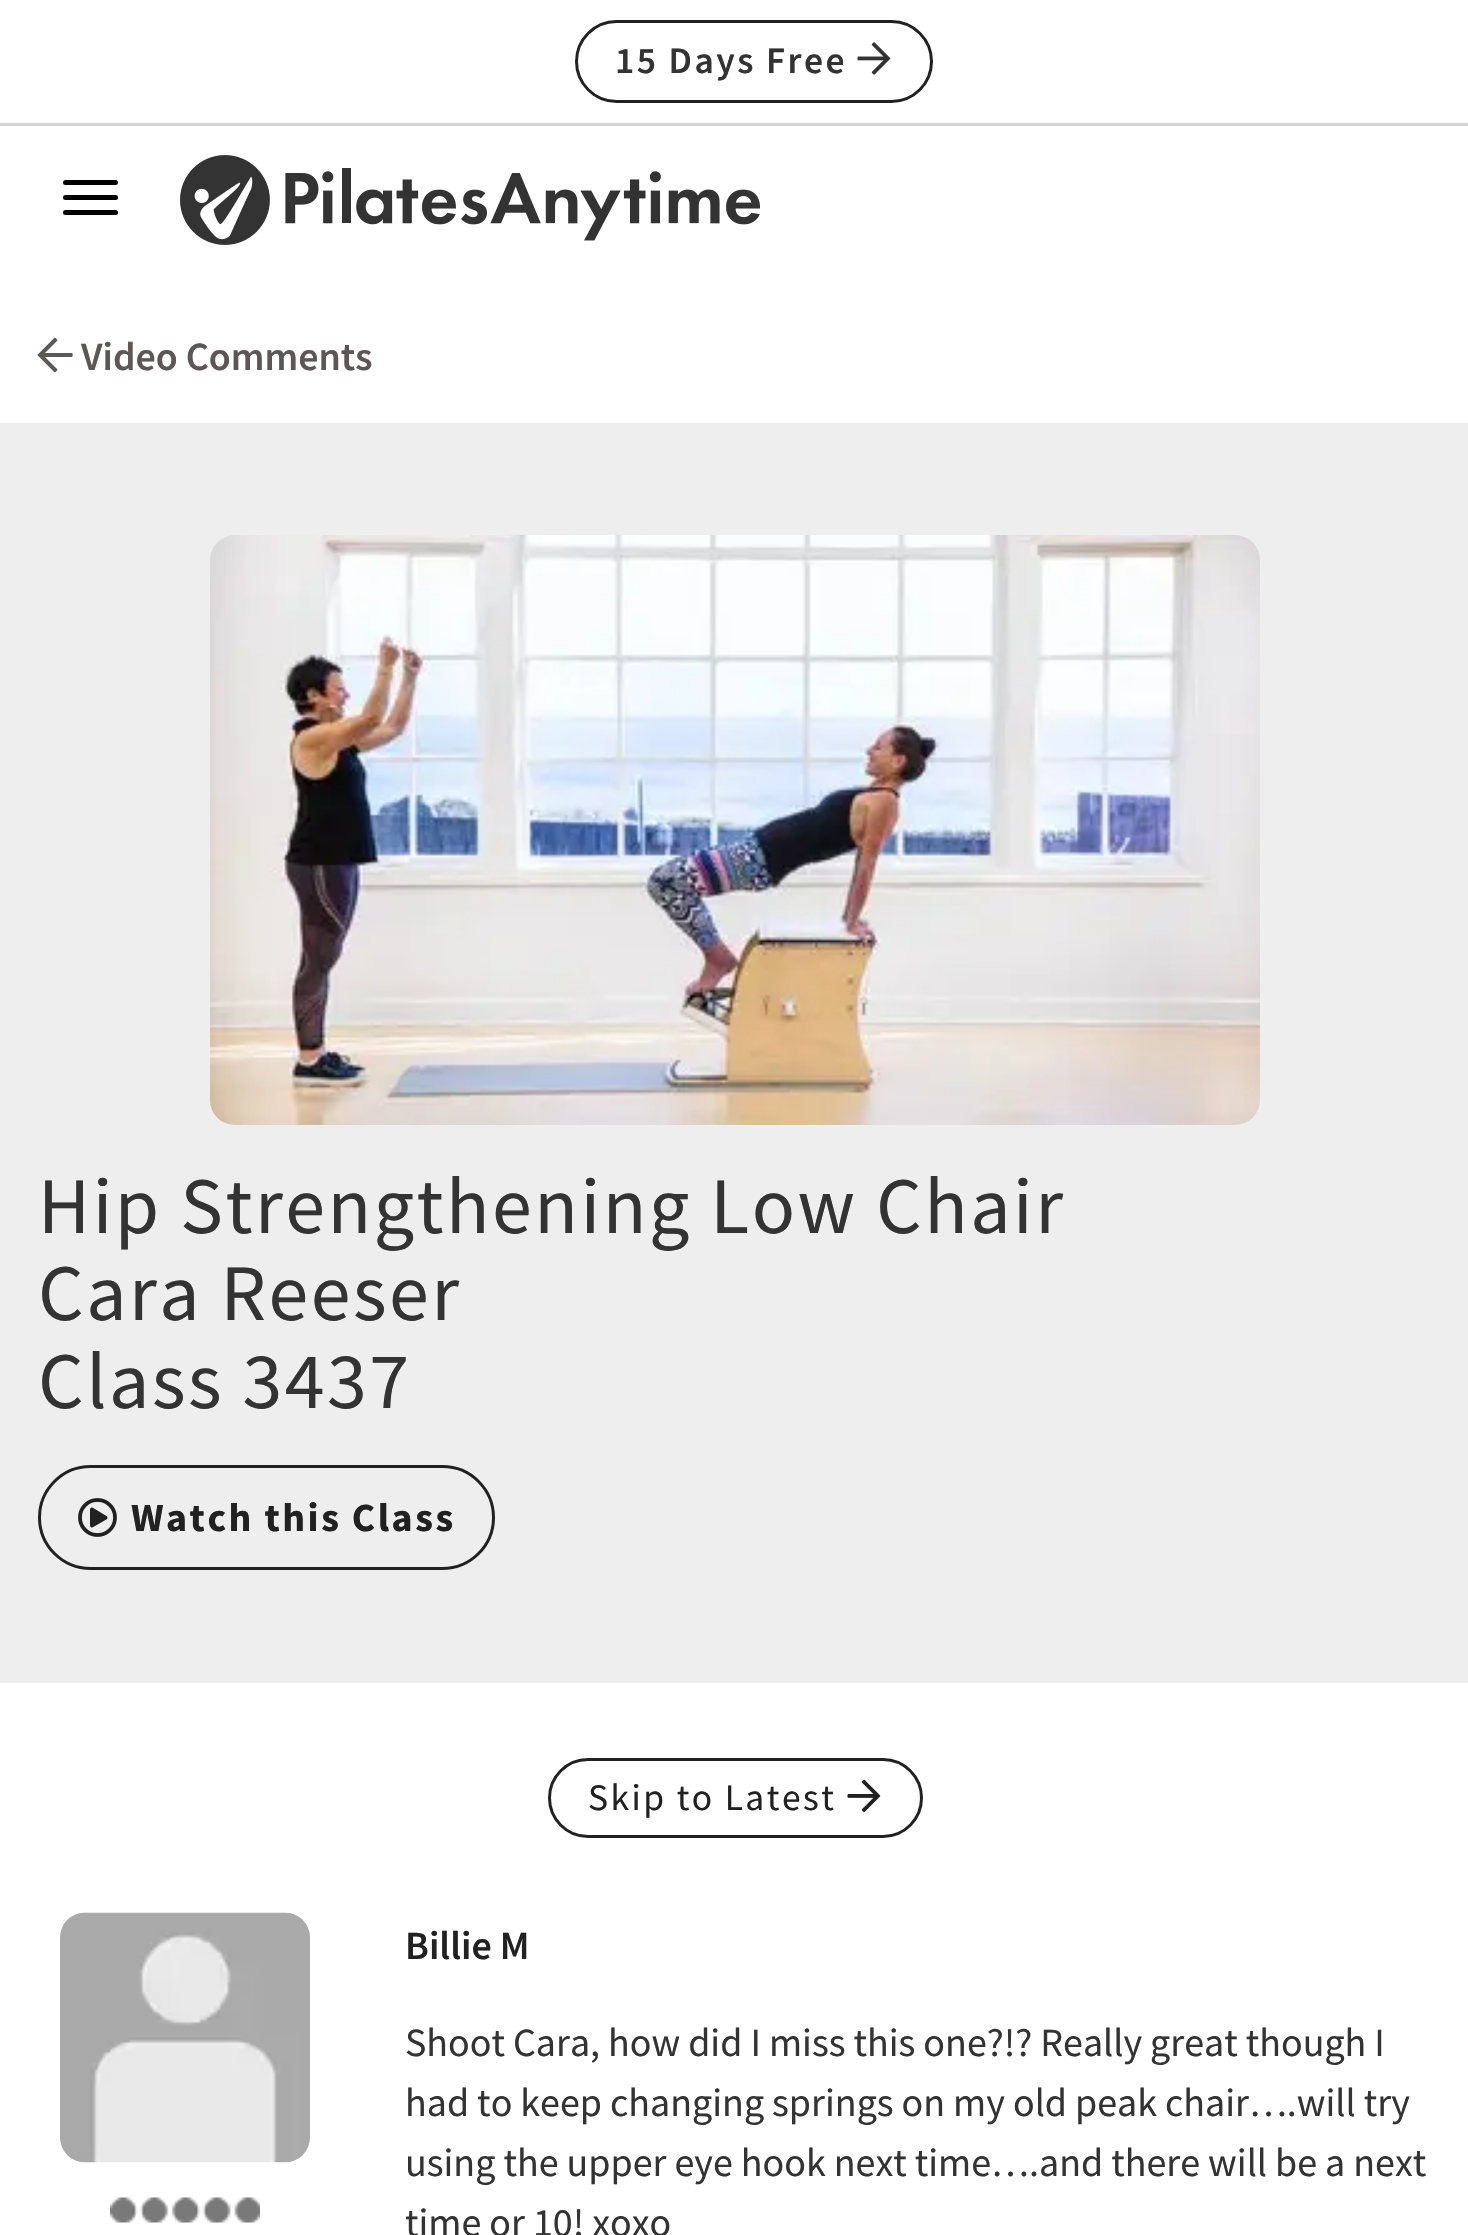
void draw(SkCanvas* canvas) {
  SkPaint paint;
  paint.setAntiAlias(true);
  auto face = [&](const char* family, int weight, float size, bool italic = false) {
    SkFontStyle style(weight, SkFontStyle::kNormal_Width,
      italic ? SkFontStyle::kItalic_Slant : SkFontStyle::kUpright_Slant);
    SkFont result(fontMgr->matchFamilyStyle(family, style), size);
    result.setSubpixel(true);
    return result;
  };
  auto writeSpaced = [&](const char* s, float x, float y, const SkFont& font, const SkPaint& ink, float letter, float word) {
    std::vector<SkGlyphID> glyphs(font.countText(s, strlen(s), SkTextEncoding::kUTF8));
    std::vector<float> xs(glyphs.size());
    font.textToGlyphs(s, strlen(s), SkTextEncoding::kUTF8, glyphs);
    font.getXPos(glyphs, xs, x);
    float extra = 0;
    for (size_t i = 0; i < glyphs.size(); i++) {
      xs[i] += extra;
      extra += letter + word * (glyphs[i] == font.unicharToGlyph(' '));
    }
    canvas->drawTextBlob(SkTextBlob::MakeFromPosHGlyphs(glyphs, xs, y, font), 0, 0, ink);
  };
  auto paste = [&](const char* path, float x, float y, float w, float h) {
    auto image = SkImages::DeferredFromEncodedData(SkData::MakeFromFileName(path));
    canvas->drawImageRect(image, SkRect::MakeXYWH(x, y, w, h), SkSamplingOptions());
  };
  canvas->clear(0xffffffff);
  paint.setColor(0xffd3d3d3);
  canvas->drawRect(SkRect::MakeXYWH(0, 123, 1468, 3), paint);
  paint.setStroke(true);
  paint.setStrokeWidth(3);
  paint.setColor(0xff212121);
  canvas->drawRoundRect(SkRect::MakeXYWH(576.5f, 21.5f, 355, 80), 40, 40, paint);
  paste("img/1.png", 857, 42, 34, 33);
  paint.setStroke(false);
  paint.setColor(0xff000000);
  canvas->drawRoundRect(SkRect::MakeXYWH(63, 180, 55, 5), 2.5f, 2.5f, paint);
  canvas->drawRoundRect(SkRect::MakeXYWH(63, 195, 55, 5), 2.5f, 2.5f, paint);
  canvas->drawRoundRect(SkRect::MakeXYWH(63, 210, 55, 5), 2.5f, 2.5f, paint);
  paste("img/2.png", 180, 155, 580, 90);
  paste("img/3.png", 37, 337, 36, 36);
  paint.setColor(0xffeeeeee);
  canvas->drawRect(SkRect::MakeXYWH(0, 423, 1468, 1260), paint);
  paste("img/4.png", 210, 535, 1050, 590);
  paint.setStroke(true);
  paint.setColor(0xff212121);
  canvas->drawRoundRect(SkRect::MakeXYWH(39.5f, 1466.5f, 454, 102), 51, 51, paint);
  paste("img/5.png", 78, 1498, 39, 39);
  canvas->drawRoundRect(SkRect::MakeXYWH(549.5f, 1759.5f, 372, 77), 38.5f, 38.5f, paint);
  paste("img/6.png", 847, 1779, 34, 34);
  paste("img/7.png", 60, 1912, 250, 251);
  paste("img/8.png", 110, 2197, 150, 26);
  auto f0 = face("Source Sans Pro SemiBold", 600, 37.5f);
  paint.setStroke(false);
  paint.setColor(0xff333333);
  writeSpaced("15 Days Free", 615, 73, f0, paint, 2.5f, 0);
  auto f1 = face("Source Sans Pro SemiBold", 600, 40);
  paint.setColor(0xff5c5756);
  canvas->drawString("Video Comments", 81, 370, f1, paint);
  auto f2 = face("Source Sans Pro", 400, 80);
  paint.setColor(0xff333333);
  {
    const struct { const char* s; float x, y; } items[] = {
      {"Hip Strengthening Low Chair", 38, 1233},
      {"Cara Reeser", 38, 1320},
      {"Class 3437", 38, 1408},
    };
    for (auto [s, x, y] : items) {
      writeSpaced(s, x, y, f2, paint, 2.5f, 0);
    }
  }
  auto f3 = face("Source Sans Pro", 700, 40);
  paint.setColor(0xff212121);
  writeSpaced("Watch this Class", 131, 1531, f3, paint, 2.5f, 0);
  auto f4 = face("Source Sans Pro", 400, 37.5f);
  writeSpaced("Skip to Latest", 588, 1810, f4, paint, 2.5f, 0);
  canvas->drawString("Billie M", 405, 1959, f1, paint);
  auto f5 = face("Source Sans Pro", 400, 40);
  paint.setColor(0xff333333);
  {
    const struct { const char* s; float x, y; } items[] = {
      {"Shoot Cara, how did I miss this one?!? Really great though I", 405, 2056},
      {"had to keep changing springs on my old peak chair….will try", 405, 2116},
      {"using the upper eye hook next time….and there will be a next", 405, 2176},
      {"time or 10! xoxo", 405, 2236},
    };
    for (auto [s, x, y] : items) {
      canvas->drawString(s, x, y, f5, paint);
    }
  }
}
